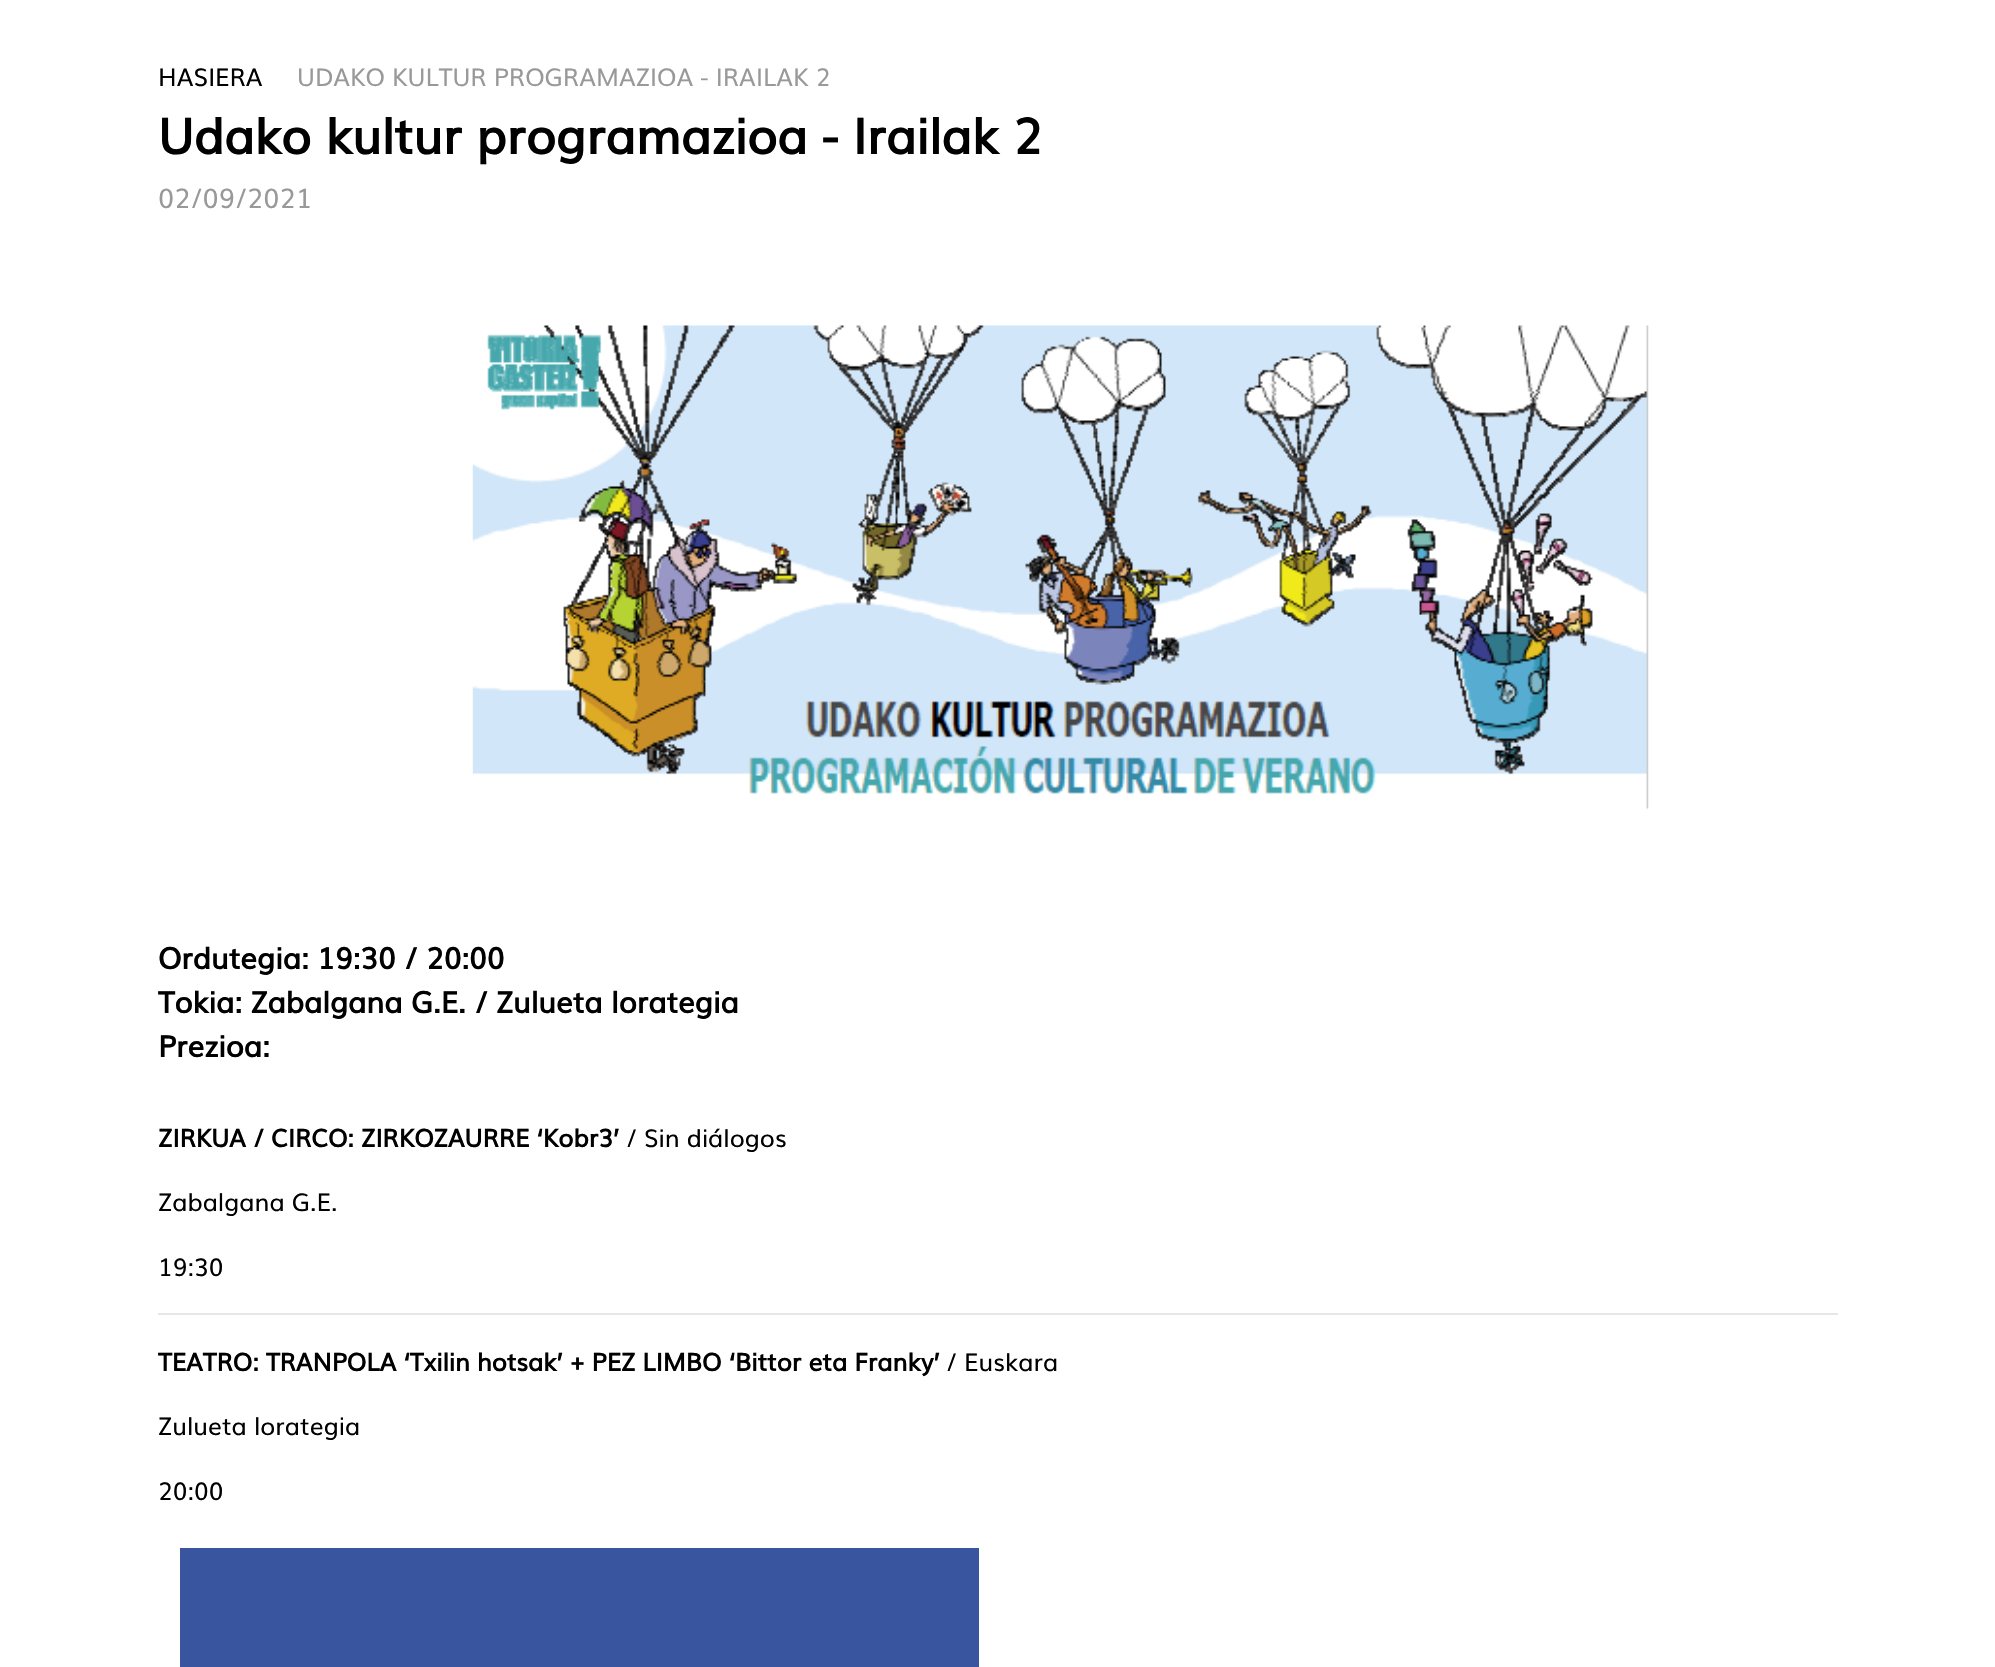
void draw(SkCanvas* canvas) {
  SkPaint paint;
  paint.setAntiAlias(true);
  auto face = [&](const char* family, int weight, float size, bool italic = false) {
    SkFontStyle style(weight, SkFontStyle::kNormal_Width,
      italic ? SkFontStyle::kItalic_Slant : SkFontStyle::kUpright_Slant);
    SkFont result(fontMgr->matchFamilyStyle(family, style), size);
    result.setSubpixel(true);
    return result;
  };
  auto paste = [&](const char* path, float x, float y, float w, float h) {
    auto image = SkImages::DeferredFromEncodedData(SkData::MakeFromFileName(path));
    canvas->drawImageRect(image, SkRect::MakeXYWH(x, y, w, h), SkSamplingOptions());
  };
  canvas->clear(0xffffffff);
  paste("img/1.png", 472, 325, 1177, 484);
  paint.setColor(0xffe6e6e6);
  canvas->drawRect(SkRect::MakeXYWH(158, 1313, 1680, 2), paint);
  paint.setColor(0xff3a559f);
  canvas->drawRect(SkRect::MakeXYWH(180, 1548, 799, 119), paint);
  auto f0 = face("Muli", 400, 24.5f);
  paint.setColor(0xff000000);
  canvas->drawString("HASIERA", 158, 86, f0, paint);
  paint.setColor(0xff999999);
  canvas->drawString("UDAKO KULTUR PROGRAMAZIOA - IRAILAK 2", 297, 86, f0, paint);
  auto f1 = face("Muli", 700, 49);
  paint.setColor(0xff000000);
  canvas->drawString("Udako kultur programazioa - Irailak 2", 158, 154, f1, paint);
  auto f2 = face("Muli", 400, 27);
  paint.setColor(0xff999999);
  canvas->drawString("02/09/2021", 158, 208, f2, paint);
  auto f3 = face("Muli", 700, 29.4f);
  paint.setColor(0xff000000);
  {
    const struct { const char* s; float x, y; } items[] = {
      {"Ordutegia: 19:30 / 20:00", 158, 969},
      {"Tokia: Zabalgana G.E. / Zulueta lorategia", 158, 1013},
      {"Prezioa:", 158, 1057},
    };
    for (auto [s, x, y] : items) {
      canvas->drawString(s, x, y, f3, paint);
    }
  }
  auto f4 = face("Muli", 700, 24.5f);
  canvas->drawString("ZIRKUA / CIRCO: ZIRKOZAURRE ‘Kobr3’", 158, 1147, f4, paint);
  {
    const struct { const char* s; float x, y; } items[] = {
      {"/ Sin diálogos", 626, 1147},
      {"Zabalgana G.E.", 158, 1211},
      {"19:30", 158, 1276},
    };
    for (auto [s, x, y] : items) {
      canvas->drawString(s, x, y, f0, paint);
    }
  }
  canvas->drawString("TEATRO: TRANPOLA ‘Txilin hotsak’ + PEZ LIMBO ‘Bittor eta Franky’", 158, 1371, f4, paint);
  {
    const struct { const char* s; float x, y; } items[] = {
      {"/ Euskara", 946, 1371},
      {"Zulueta lorategia", 158, 1435},
      {"20:00", 158, 1500},
    };
    for (auto [s, x, y] : items) {
      canvas->drawString(s, x, y, f0, paint);
    }
  }
}
